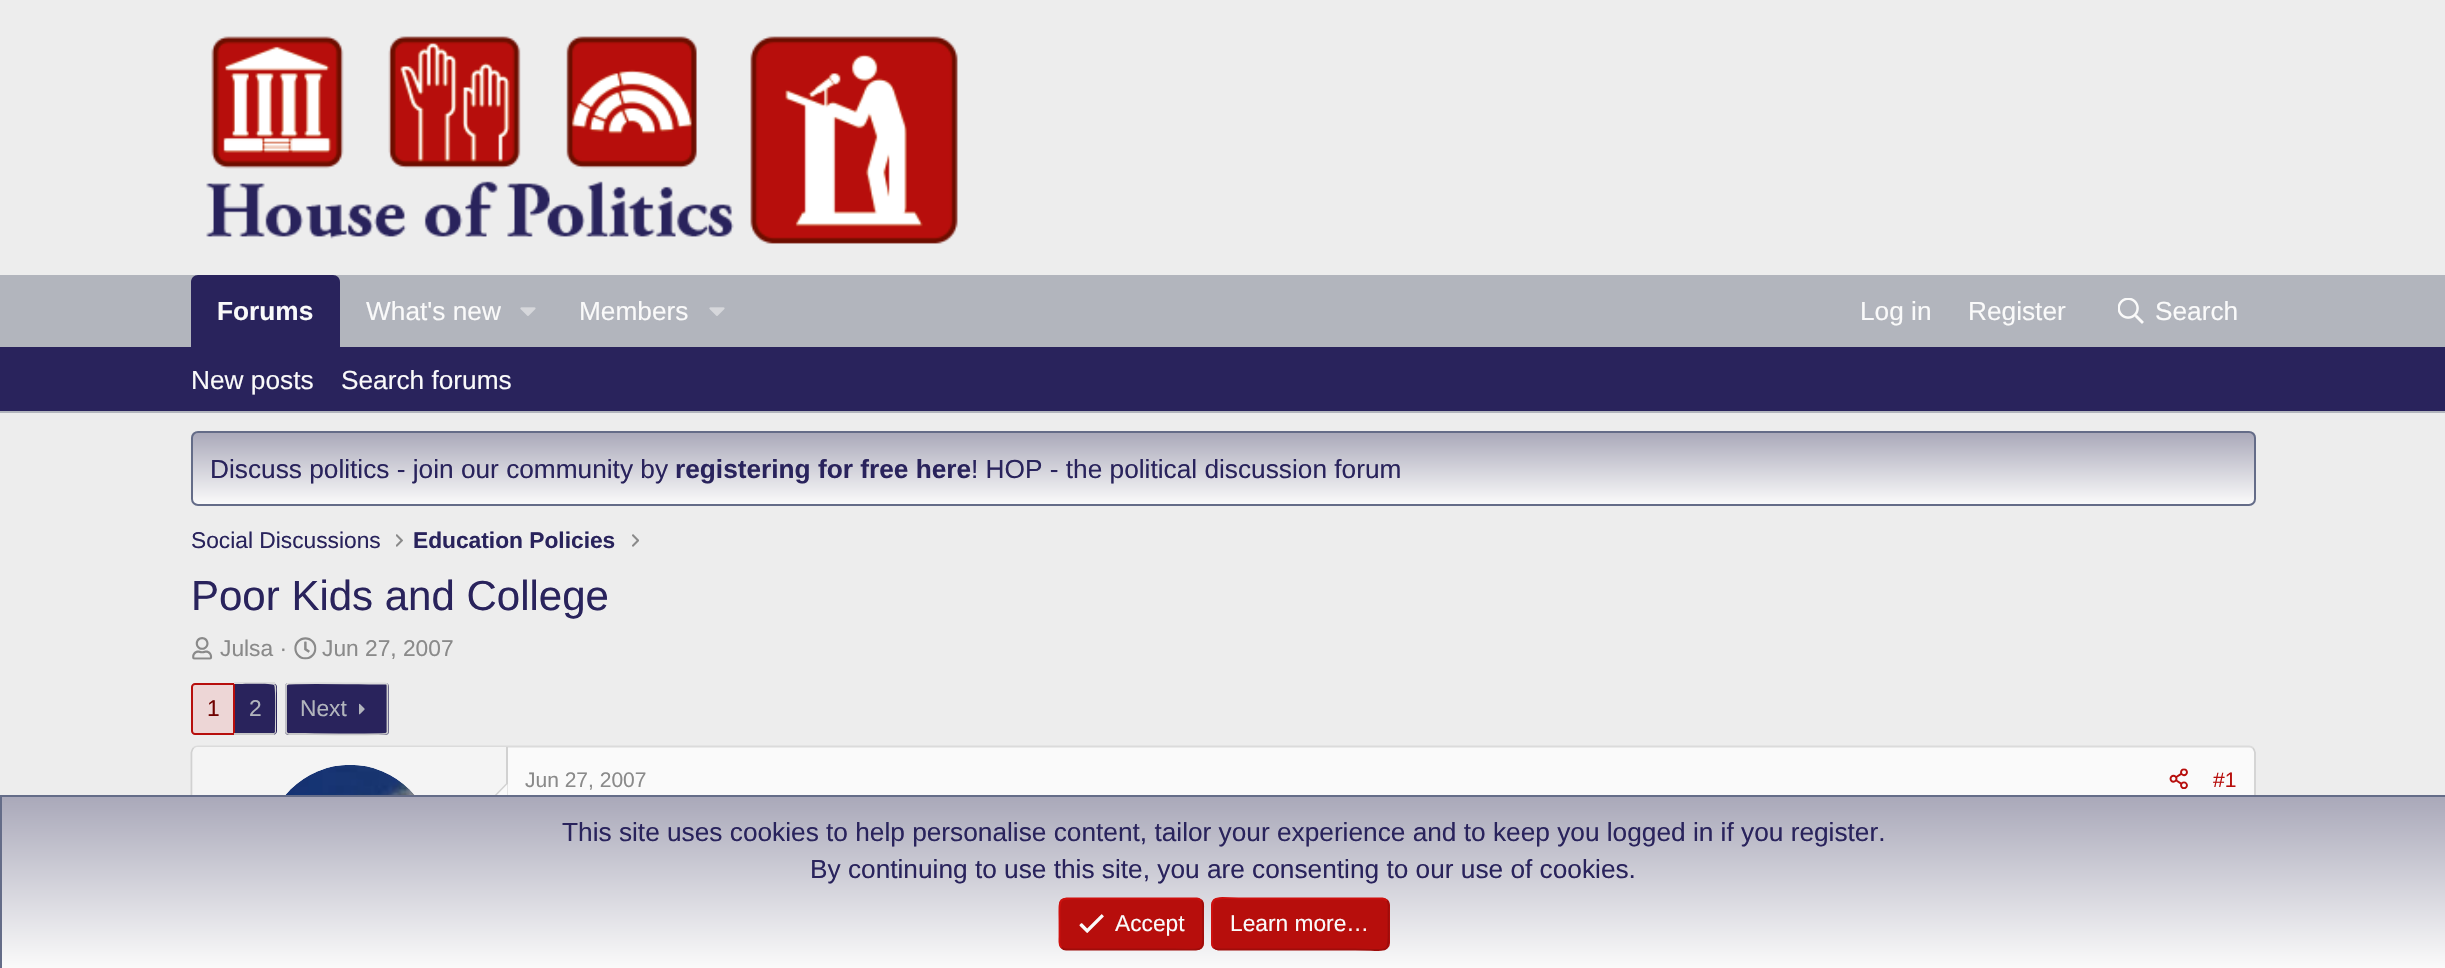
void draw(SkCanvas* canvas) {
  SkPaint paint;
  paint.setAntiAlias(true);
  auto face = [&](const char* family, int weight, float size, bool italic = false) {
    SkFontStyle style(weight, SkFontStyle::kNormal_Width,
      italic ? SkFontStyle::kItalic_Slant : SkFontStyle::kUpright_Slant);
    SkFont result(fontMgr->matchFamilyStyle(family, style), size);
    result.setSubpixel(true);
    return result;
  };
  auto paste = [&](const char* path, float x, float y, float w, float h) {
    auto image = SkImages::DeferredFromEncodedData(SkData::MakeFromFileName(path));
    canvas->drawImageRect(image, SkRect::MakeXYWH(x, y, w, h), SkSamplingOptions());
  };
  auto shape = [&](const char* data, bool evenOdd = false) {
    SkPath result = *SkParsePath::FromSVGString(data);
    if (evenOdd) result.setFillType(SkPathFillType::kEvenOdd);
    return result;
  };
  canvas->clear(0xffededed);
  paste("img/1.png", 206, 36, 752, 208);
  paint.setColor(0xffb2b5bd);
  canvas->drawRect(SkRect::MakeXYWH(0, 275, 2445, 72), paint);
  paint.setColor(0xff29235c);
  canvas->drawPath(shape("M198 275H333C337 275 340 278 340 282V347H191V282C191 278 194 275 198 275Z"), paint);
  paste("img/2.png", 520, 307, 16, 9);
  paste("img/2.png", 709, 307, 16, 9);
  paste("img/3.png", 2118, 298, 26, 26);
  canvas->drawRect(SkRect::MakeXYWH(0, 347, 2445, 64), paint);
  paint.setColor(0xffb2b5bd);
  canvas->drawRect(SkRect::MakeXYWH(0, 411, 2445, 2), paint);
  canvas->save();
  canvas->clipPath(shape("M198 431H2249C2253 431 2256 434 2256 438V499C2256 503 2253 506 2249 506H198C194 506 191 503 191 499V438C191 434 194 431 198 431Z"), true);
  {
    const SkColor colors[] = {0xfffafafa, 0xffa9a8b9};
    const float stops[] = {0, 1};
    const SkPoint ends[] = {{1223, 504}, {1223, 432}};
    paint.setShader(SkGradientShader::MakeLinear(ends, colors, stops, 2, SkTileMode::kClamp));
    paint.setAlpha(255);
  }
  canvas->drawRect(SkRect::MakeXYWH(191, 432, 2065, 72), paint);
  canvas->restore();
  paint.setStroke(true);
  paint.setStrokeWidth(2);
  paint.setShader(nullptr);
  paint.setColor(0xff646c88);
  canvas->drawRoundRect(SkRect::MakeXYWH(192, 432, 2063, 73), 6, 6, paint);
  paste("img/4.png", 396, 534, 7, 13);
  paste("img/5.png", 632, 534, 7, 13);
  paste("img/6.png", 192, 637, 21, 23);
  paste("img/7.png", 294, 637, 23, 23);
  paint.setStroke(false);
  paint.setColor(0xffedd6d6);
  canvas->drawPath(shape("M195 684H234V734H195C193.5 734 192 732.5 192 731V687C192 685.5 193.5 684 195 684Z"), paint);
  paint.setStroke(true);
  paint.setColor(0xffb70e0c);
  canvas->drawPath(shape("M195 684H234V734H195C193.5 734 192 732.5 192 731V687C192 685.5 193.5 684 195 684Z"), paint);
  paint.setStroke(false);
  paint.setColor(0xff29235c);
  canvas->drawPath(shape("M235 683H273C275 683 277 685 277 687V731C277 733 275 735 273 735H235Z"), paint);
  paint.setColor(0xffdbdbdb);
  canvas->drawPath(shape("M234 682H275V684L274 685C273 683 239 684 234 684Z"), paint);
  paint.setColor(0xffd1d1d1);
  canvas->drawPath(shape("M274 733L275 732C275 727 276 686 274 685L275 684C277 686 276 693 276 694V732L275 734Z"), paint);
  paint.setColor(0xffc7c7c7);
  canvas->drawPath(shape("M234 733H274L275 734L274 735H234Z"), paint);
  paint.setColor(0xff29235c);
  canvas->drawRoundRect(SkRect::MakeXYWH(285, 683, 104, 52), 4, 4, paint);
  paint.setStroke(true);
  paint.setStrokeWidth(1.8f);
  paint.setColor(0xffdbdbdb);
  canvas->drawPath(shape("M287 684H287.5C289.5 682.5 360.5 683.5 369 683.5H385L387 684"), paint);
  paint.setColor(0xffd1d1d1);
  canvas->drawPath(shape("M387 684L387.5 685.5V732L387 733.5"), paint);
  paint.setColor(0xffc7c7c7);
  canvas->drawPath(shape("M387 733.5H386.5C384.5 735 313 734 305 734H289L287 733.5"), paint);
  paint.setColor(0xffd1d1d1);
  canvas->drawPath(shape("M287 733.5L286 732V685.5L287 684"), paint);
  paste("img/8.png", 359, 703, 6, 12);
  paint.setStroke(false);
  paint.setColor(0xfffafafa);
  canvas->drawRoundRect(SkRect::MakeXYWH(191, 746, 2065, 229), 7, 7, paint);
  paint.setStroke(true);
  paint.setColor(0xffdbdbdb);
  canvas->drawPath(shape("M193.5 748C194.5 747 196 746.5 198 746.5H2249C2250.5 746.5 2252 747 2253 748"), paint);
  paint.setColor(0xffd1d1d1);
  canvas->drawPath(shape("M2253 748C2254 749.5 2255 751 2255 752.5V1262C2255 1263.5 2254 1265 2253 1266"), paint);
  canvas->drawPath(shape("M193.5 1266C192.5 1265 191.5 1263.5 191.5 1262V752.5C191.5 751 192.5 749.5 193.5 748"), paint);
  paint.setStroke(false);
  paint.setColor(0xfff4f4f4);
  canvas->drawPath(shape("M198 747H508V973H198C195 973 193 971 193 968V752C193 749 195 747 198 747Z"), paint);
  paint.setColor(0xffd1d1d1);
  canvas->drawRect(SkRect::MakeXYWH(506, 747, 2, 48), paint);
  paint.setColor(0xfffafafa);
  canvas->drawCircle(350, 849, 84, paint);
  paste("img/9.png", 285, 765, 130, 30);
  paint.setColor(0xffd1d1d1);
  canvas->drawPath(shape("M507.5 782V817L490 800Z"), paint);
  paint.setColor(0xfffafafa);
  canvas->drawPath(shape("M507.5 784V815.5L492 800Z"), paint);
  paste("img/10.png", 2169, 768, 19, 21);
  {
    const SkColor colors[] = {0xfffafafa, 0xffa9a8b9};
    const float stops[] = {0, 1};
    const SkPoint ends[] = {{1223, 968}, {1223, 796}};
    paint.setShader(SkGradientShader::MakeLinear(ends, colors, stops, 2, SkTileMode::kClamp));
    paint.setAlpha(255);
  }
  canvas->drawRect(SkRect::MakeXYWH(2, 797, 2443, 171), paint);
  paint.setStroke(true);
  paint.setStrokeWidth(2);
  paint.setShader(nullptr);
  paint.setColor(0xff646c88);
  canvas->drawRect(SkRect::MakeXYWH(1, 796, 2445, 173), paint);
  paint.setStroke(false);
  paint.setColor(0xffb70e0c);
  canvas->drawRoundRect(SkRect::MakeXYWH(1059, 898, 145, 52), 7, 7, paint);
  paint.setStroke(true);
  paint.setStrokeWidth(1.8f);
  paint.setColor(0xff9f0c0a);
  canvas->drawPath(shape("M1201.5 900.5C1204 903 1203 908 1203 911V924C1203 954 1207 949.5 1175 949.5H1066C1064 949.5 1062.5 948.5 1061.5 947.5"), paint);
  paint.setColor(0xffcf100e);
  canvas->drawPath(shape("M1061.5 947.5C1058.5 945 1059.5 940 1059.5 937V924C1059.5 894 1056 898.5 1087.5 898.5H1197C1198.5 898.5 1200 899.5 1201.5 900.5"), paint);
  paste("img/11.png", 1079, 914, 25, 19);
  paint.setStroke(false);
  paint.setColor(0xffb70e0c);
  canvas->drawRoundRect(SkRect::MakeXYWH(1211, 898, 179, 52), 7, 7, paint);
  paint.setStroke(true);
  paint.setColor(0xff9f0c0a);
  canvas->drawPath(shape("M1387 900.5C1389.5 903 1388.5 908 1388.5 911V924C1388.5 956 1392 949.5 1355 949.5H1218C1216.5 949.5 1215 948.5 1213.5 947.5"), paint);
  paint.setColor(0xffcf100e);
  canvas->drawPath(shape("M1213.5 947.5C1211 945 1212 940 1212 937V924C1212 892 1208.5 898.5 1245.5 898.5H1382.5C1384 898.5 1385.5 899.5 1387 900.5"), paint);
  auto f0 = face("Liberation Sans", 700, 26.25f);
  paint.setStroke(false);
  paint.setColor(0xfffafafa);
  canvas->drawString("Forums", 217, 320, f0, paint);
  auto f1 = face("Liberation Sans", 400, 26.25f);
  {
    const struct { const char* s; float x, y; } items[] = {
      {"What's new", 366, 320},
      {"Members", 579, 320},
      {"Log in", 1860, 320},
      {"Register", 1968, 320},
      {"Search", 2155, 320},
      {"New posts", 191, 389},
      {"Search forums", 341, 389},
    };
    for (auto [s, x, y] : items) {
      canvas->drawString(s, x, y, f1, paint);
    }
  }
  paint.setColor(0xff29235c);
  canvas->drawString("Discuss politics - join our community by", 210, 478, f1, paint);
  canvas->drawString("registering for free here", 675, 478, f0, paint);
  canvas->drawString("! HOP - the political discussion forum", 971, 478, f1, paint);
  auto f2 = face("Liberation Sans", 400, 22.75f);
  canvas->drawString("Social Discussions", 191, 548, f2, paint);
  auto f3 = face("Liberation Sans", 700, 22.75f);
  canvas->drawString("Education Policies", 413, 548, f3, paint);
  auto f4 = face("Liberation Sans", 400, 42);
  canvas->drawString("Poor Kids and College", 191, 610, f4, paint);
  paint.setColor(0xff8a8a8a);
  canvas->drawString("Julsa ·", 220, 656, f2, paint);
  canvas->drawString("Jun 27, 2007", 322, 656, f2, paint);
  paint.setColor(0xff700200);
  canvas->drawString("1", 207, 716, f2, paint);
  paint.setColor(0xffb2b5bd);
  canvas->drawString("2", 249, 716, f2, paint);
  canvas->drawString("Next", 300, 716, f2, paint);
  auto f5 = face("Liberation Sans", 400, 21);
  paint.setColor(0xff8a8a8a);
  canvas->drawString("Jun 27, 2007", 525, 787, f5, paint);
  paint.setColor(0xffb70e0c);
  canvas->drawString("#1", 2213, 787, f5, paint);
  paint.setColor(0xff29235c);
  canvas->drawString("This site uses cookies to help personalise content, tailor your experience and to keep you logged in if you register.", 562, 841, f1, paint);
  canvas->drawString("By continuing to use this site, you are consenting to our use of cookies.", 810, 878, f1, paint);
  paint.setColor(0xfffafafa);
  canvas->drawString("Accept", 1115, 931, f2, paint);
  canvas->drawString("Learn more…", 1230, 931, f2, paint);
}
